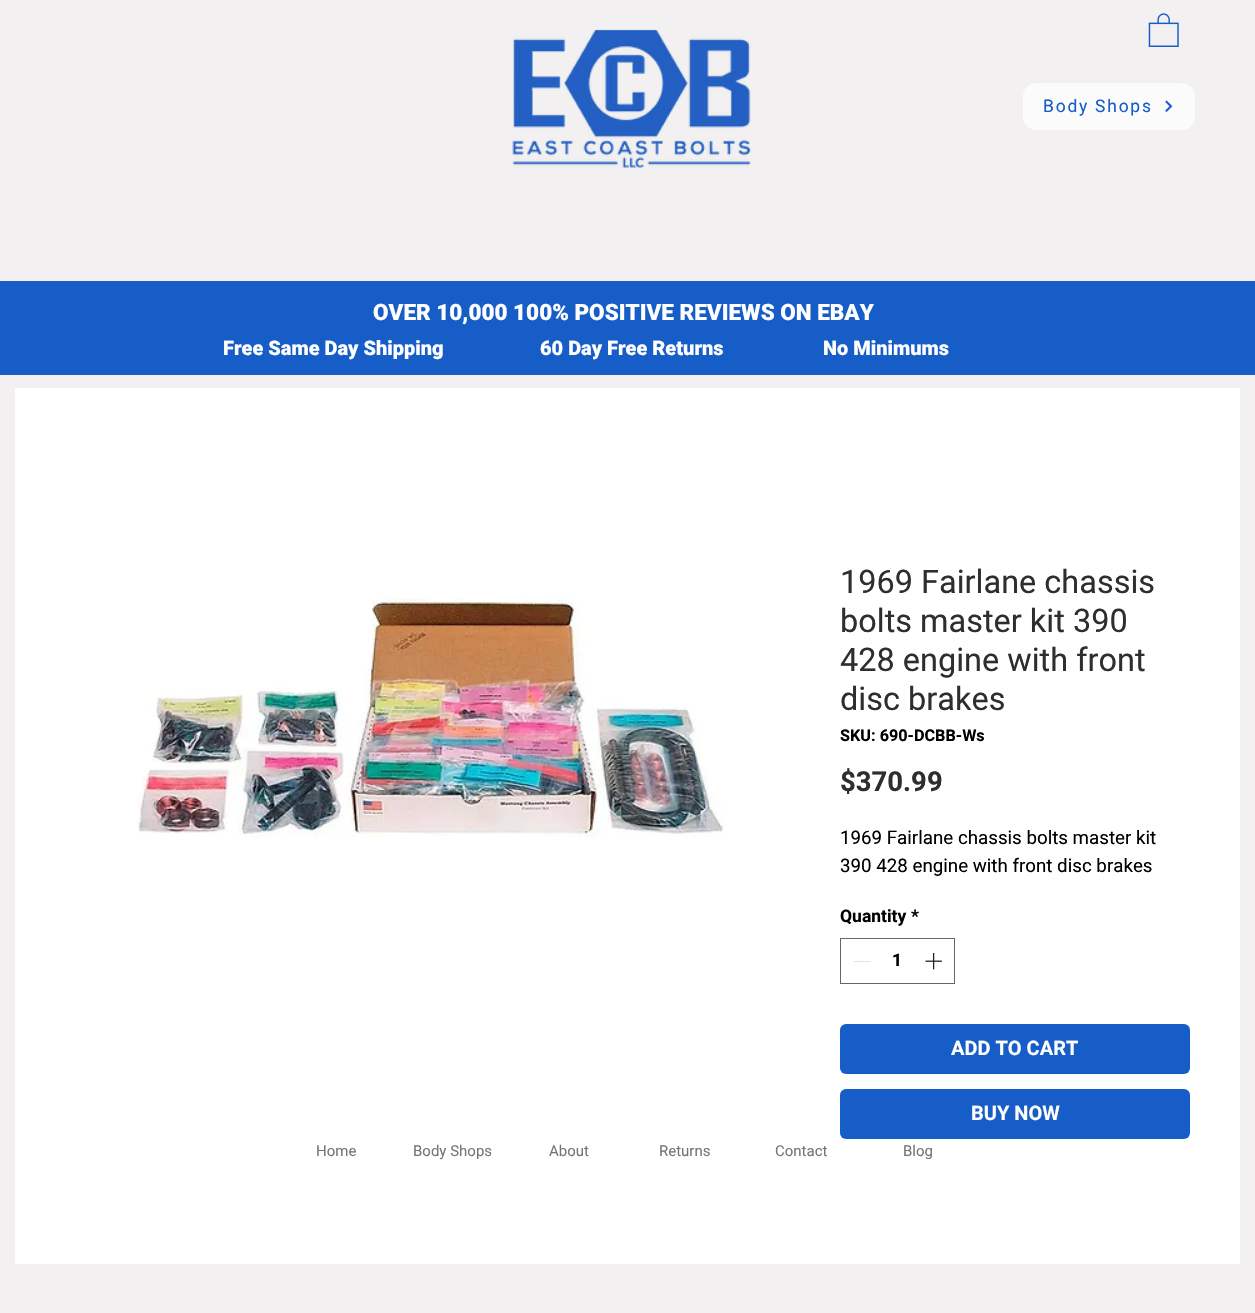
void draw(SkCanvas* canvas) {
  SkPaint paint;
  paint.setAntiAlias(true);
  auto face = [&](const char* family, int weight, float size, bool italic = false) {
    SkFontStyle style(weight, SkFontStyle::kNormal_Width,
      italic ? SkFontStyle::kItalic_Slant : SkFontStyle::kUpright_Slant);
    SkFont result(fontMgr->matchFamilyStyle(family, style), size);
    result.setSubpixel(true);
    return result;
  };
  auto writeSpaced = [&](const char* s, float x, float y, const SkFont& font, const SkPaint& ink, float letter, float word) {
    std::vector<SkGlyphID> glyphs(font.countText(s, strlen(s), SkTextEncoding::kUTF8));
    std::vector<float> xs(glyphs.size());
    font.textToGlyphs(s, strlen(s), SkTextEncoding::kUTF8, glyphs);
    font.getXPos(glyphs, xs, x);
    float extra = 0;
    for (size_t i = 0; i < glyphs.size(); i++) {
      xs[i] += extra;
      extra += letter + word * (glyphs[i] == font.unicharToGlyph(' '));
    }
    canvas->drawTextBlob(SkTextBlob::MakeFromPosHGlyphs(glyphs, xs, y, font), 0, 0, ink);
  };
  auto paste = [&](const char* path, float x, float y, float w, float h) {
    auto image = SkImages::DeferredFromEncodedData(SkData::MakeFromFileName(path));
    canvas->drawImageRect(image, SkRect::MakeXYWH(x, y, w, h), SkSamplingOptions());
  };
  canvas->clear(0xfff2f0f0);
  paste("img/1.png", 512, 29, 239, 139);
  paint.setColor(0xfffbfbfb);
  canvas->drawRoundRect(SkRect::MakeXYWH(1023, 83, 172, 47), 13, 13, paint);
  paste("img/2.png", 1165, 100, 8, 12);
  paste("img/3.png", 1148, 13, 31, 34);
  paint.setColor(0xff165dc7);
  canvas->drawRect(SkRect::MakeXYWH(0, 281, 1255, 94), paint);
  paint.setColor(0xffffffff);
  canvas->drawRect(SkRect::MakeXYWH(15, 388, 1225, 876), paint);
  paste("img/4.png", 137, 599, 586, 239);
  paint.setStroke(true);
  paint.setStrokeWidth(1);
  paint.setColor(0xff666666);
  canvas->drawRect(SkRect::MakeXYWH(840.5f, 938.5f, 114, 45), paint);
  paint.setStroke(false);
  paint.setColor(0xffe3e3e3);
  canvas->drawRect(SkRect::MakeXYWH(854, 961, 17, 1), paint);
  paste("img/5.png", 925, 952, 17, 18);
  paint.setColor(0xff165dc7);
  canvas->drawRoundRect(SkRect::MakeXYWH(840, 1024, 350, 50), 6, 6, paint);
  canvas->drawRoundRect(SkRect::MakeXYWH(840, 1089, 350, 50), 6, 6, paint);
  auto f0 = face("Roboto", 400, 17.5f);
  writeSpaced("Body Shops", 1043, 112, f0, paint, 1.75f, 0);
  auto f1 = face("Roboto", 900, 22.5f);
  paint.setColor(0xffffffff);
  canvas->drawString("OVER 10,000 100% POSITIVE REVIEWS ON EBAY", 373, 320, f1, paint);
  auto f2 = face("Roboto", 900, 20);
  {
    const struct { const char* s; float x, y; } items[] = {
      {"Free Same Day Shipping", 223, 355},
      {"60 Day Free Returns", 540, 355},
      {"No Minimums", 823, 355},
    };
    for (auto [s, x, y] : items) {
      canvas->drawString(s, x, y, f2, paint);
    }
  }
  auto f3 = face("Roboto", 400, 32.5f);
  paint.setColor(0xff2f2e2e);
  {
    const struct { const char* s; float x, y; } items[] = {
      {"1969 Fairlane chassis", 840, 593},
      {"bolts master kit 390", 840, 632},
      {"428 engine with front", 840, 671},
      {"disc brakes", 840, 710},
    };
    for (auto [s, x, y] : items) {
      canvas->drawString(s, x, y, f3, paint);
    }
  }
  auto f4 = face("Roboto", 700, 16.25f);
  paint.setColor(0xff000000);
  canvas->drawString("SKU: 690-DCBB-Ws", 840, 741, f4, paint);
  auto f5 = face("Roboto", 700, 27.5f);
  paint.setColor(0xff2f2e2e);
  canvas->drawString("$370.99", 840, 791, f5, paint);
  auto f6 = face("Roboto", 400, 18.75f);
  paint.setColor(0xff000000);
  canvas->drawString("1969 Fairlane chassis bolts master kit", 840, 844, f6, paint);
  canvas->drawString("390 428 engine with front disc brakes", 840, 872, f6, paint);
  auto f7 = face("Roboto", 700, 17.5f);
  {
    const struct { const char* s; float x, y; } items[] = {
      {"Quantity", 840, 922},
      {"*", 911, 922},
      {"1", 892, 966},
    };
    for (auto [s, x, y] : items) {
      canvas->drawString(s, x, y, f7, paint);
    }
  }
  auto f8 = face("Roboto", 700, 20);
  paint.setColor(0xffffffff);
  canvas->drawString("ADD TO CART", 951, 1055, f8, paint);
  canvas->drawString("BUY NOW", 971, 1120, f8, paint);
  auto f9 = face("Roboto", 400, 15);
  paint.setColor(0xff757575);
  {
    const struct { const char* s; float x, y; } items[] = {
      {"Home", 316, 1156},
      {"Body Shops", 413, 1156},
      {"About", 549, 1156},
      {"Returns", 659, 1156},
      {"Contact", 775, 1156},
      {"Blog", 903, 1156},
    };
    for (auto [s, x, y] : items) {
      canvas->drawString(s, x, y, f9, paint);
    }
  }
}
